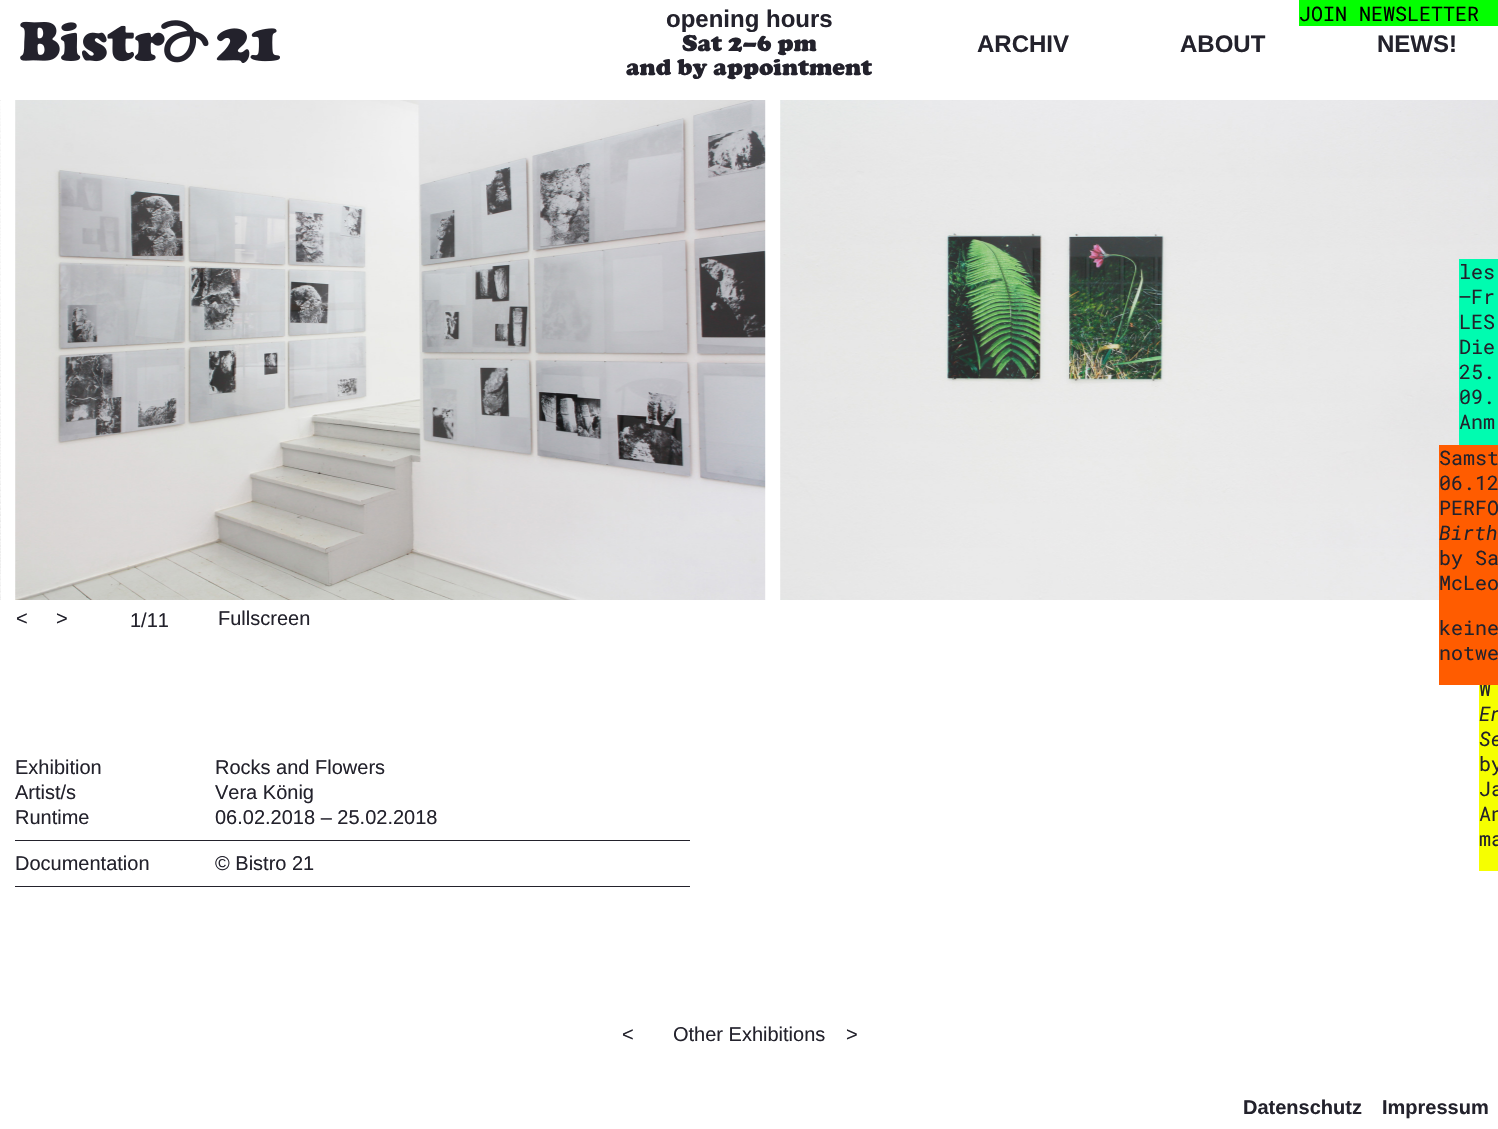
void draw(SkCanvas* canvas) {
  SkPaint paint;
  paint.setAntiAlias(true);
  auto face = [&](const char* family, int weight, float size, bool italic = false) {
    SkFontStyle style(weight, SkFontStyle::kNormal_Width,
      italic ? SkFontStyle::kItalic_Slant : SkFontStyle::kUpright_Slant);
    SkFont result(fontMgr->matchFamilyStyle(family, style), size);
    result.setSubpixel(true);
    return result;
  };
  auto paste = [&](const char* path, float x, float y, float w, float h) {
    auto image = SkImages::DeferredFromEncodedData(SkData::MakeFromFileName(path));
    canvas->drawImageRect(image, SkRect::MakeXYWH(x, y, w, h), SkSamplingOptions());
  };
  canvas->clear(0xffffffff);
  paint.setColor(0xff03ff00);
  canvas->drawRect(SkRect::MakeXYWH(1299, 0, 199, 26), paint);
  paste("img/1.png", 20, 20, 260, 43);
  paste("img/2.png", 0, 100, 1, 500);
  paste("img/3.png", 15, 100, 751, 500);
  paste("img/4.png", 780, 100, 718, 500);
  {
    const struct { float x, y, w, h; SkColor color; } items[] = {
      {15, 840, 675, 1, 0xff23222c},
      {15, 886, 675, 1, 0xff23222c},
      {1459, 259, 39, 186, 0xff00fcb0},
      {1479, 685, 19, 186, 0xfff6ff00},
    };
    for (auto [x, y, w, h, color] : items) {
      paint.setColor(color);
      canvas->drawRect(SkRect::MakeXYWH(x, y, w, h), paint);
    }
  }
  auto f0 = face("Roboto Mono", 400, 20);
  paint.setColor(0xff000000);
  canvas->drawString("JOIN NEWSLETTER", 1299, 21, f0, paint);
  auto f1 = face("Liberation Sans", 700, 24);
  paint.setColor(0xff23222c);
  canvas->drawString("opening hours", 666, 27, f1, paint);
  auto f2 = face("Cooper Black", 900, 24);
  canvas->drawString("Sat 2–6 pm", 682, 51, f2, paint);
  canvas->drawString("and by appointment", 626, 75, f2, paint);
  {
    const struct { const char* s; float x, y; } items[] = {
      {"ARCHIV", 977, 52},
      {"ABOUT", 1180, 52},
      {"NEWS!", 1377, 52},
    };
    for (auto [s, x, y] : items) {
      canvas->drawString(s, x, y, f1, paint);
    }
  }
  auto f3 = face("Liberation Sans", 400, 20);
  {
    const struct { const char* s; float x, y; } items[] = {
      {"<", 16, 625},
      {">", 56, 625},
      {"1/11", 130, 627},
      {"Fullscreen", 218, 625},
      {"Exhibition", 15, 774},
      {"Rocks and Flowers", 215, 774},
      {"Artist/s", 15, 799},
      {"Vera König", 215, 799},
      {"Runtime", 15, 824},
      {"06.02.2018 – 25.02.2018", 215, 824},
      {"Documentation", 15, 870},
      {"© Bistro 21", 215, 870},
      {"<", 622, 1041},
      {"Other Exhibitions", 673, 1041},
      {">", 846, 1041},
    };
    for (auto [s, x, y] : items) {
      canvas->drawString(s, x, y, f3, paint);
    }
  }
  {
    const struct { const char* s; float x, y; } items[] = {
      {"les", 1459, 279},
      {"–Fr", 1459, 304},
      {"LES", 1459, 329},
      {"Die", 1459, 354},
      {"25.", 1459, 379},
      {"09.", 1459, 404},
      {"Anm", 1459, 429},
      {"W", 1479, 696},
    };
    for (auto [s, x, y] : items) {
      canvas->drawString(s, x, y, f0, paint);
    }
  }
  paint.setColor(0xffff5c00);
  canvas->drawRect(SkRect::MakeXYWH(1439, 445, 59, 240), paint);
  paint.setColor(0xff23222c);
  {
    const struct { const char* s; float x, y; } items[] = {
      {"notwe", 1439, 660},
      {"keine", 1439, 635},
      {"McLeo", 1439, 590},
      {"by Sa", 1439, 565},
    };
    for (auto [s, x, y] : items) {
      canvas->drawString(s, x, y, f0, paint);
    }
  }
  auto f4 = face("Roboto Mono", 400, 20, true);
  canvas->drawString("Birth", 1439, 540, f4, paint);
  {
    const struct { const char* s; float x, y; } items[] = {
      {"PERFO", 1439, 515},
      {"06.12", 1439, 490},
      {"Samst", 1439, 465},
    };
    for (auto [s, x, y] : items) {
      canvas->drawString(s, x, y, f0, paint);
    }
  }
  canvas->drawString("En", 1479, 721, f4, paint);
  canvas->drawString("Se", 1479, 746, f4, paint);
  {
    const struct { const char* s; float x, y; } items[] = {
      {"by", 1479, 771},
      {"Ja", 1479, 796},
      {"An", 1479, 821},
      {"ma", 1479, 846},
    };
    for (auto [s, x, y] : items) {
      canvas->drawString(s, x, y, f0, paint);
    }
  }
  auto f5 = face("Liberation Sans", 700, 20);
  canvas->drawString("Datenschutz", 1243, 1114, f5, paint);
  canvas->drawString("Impressum", 1382, 1114, f5, paint);
}
